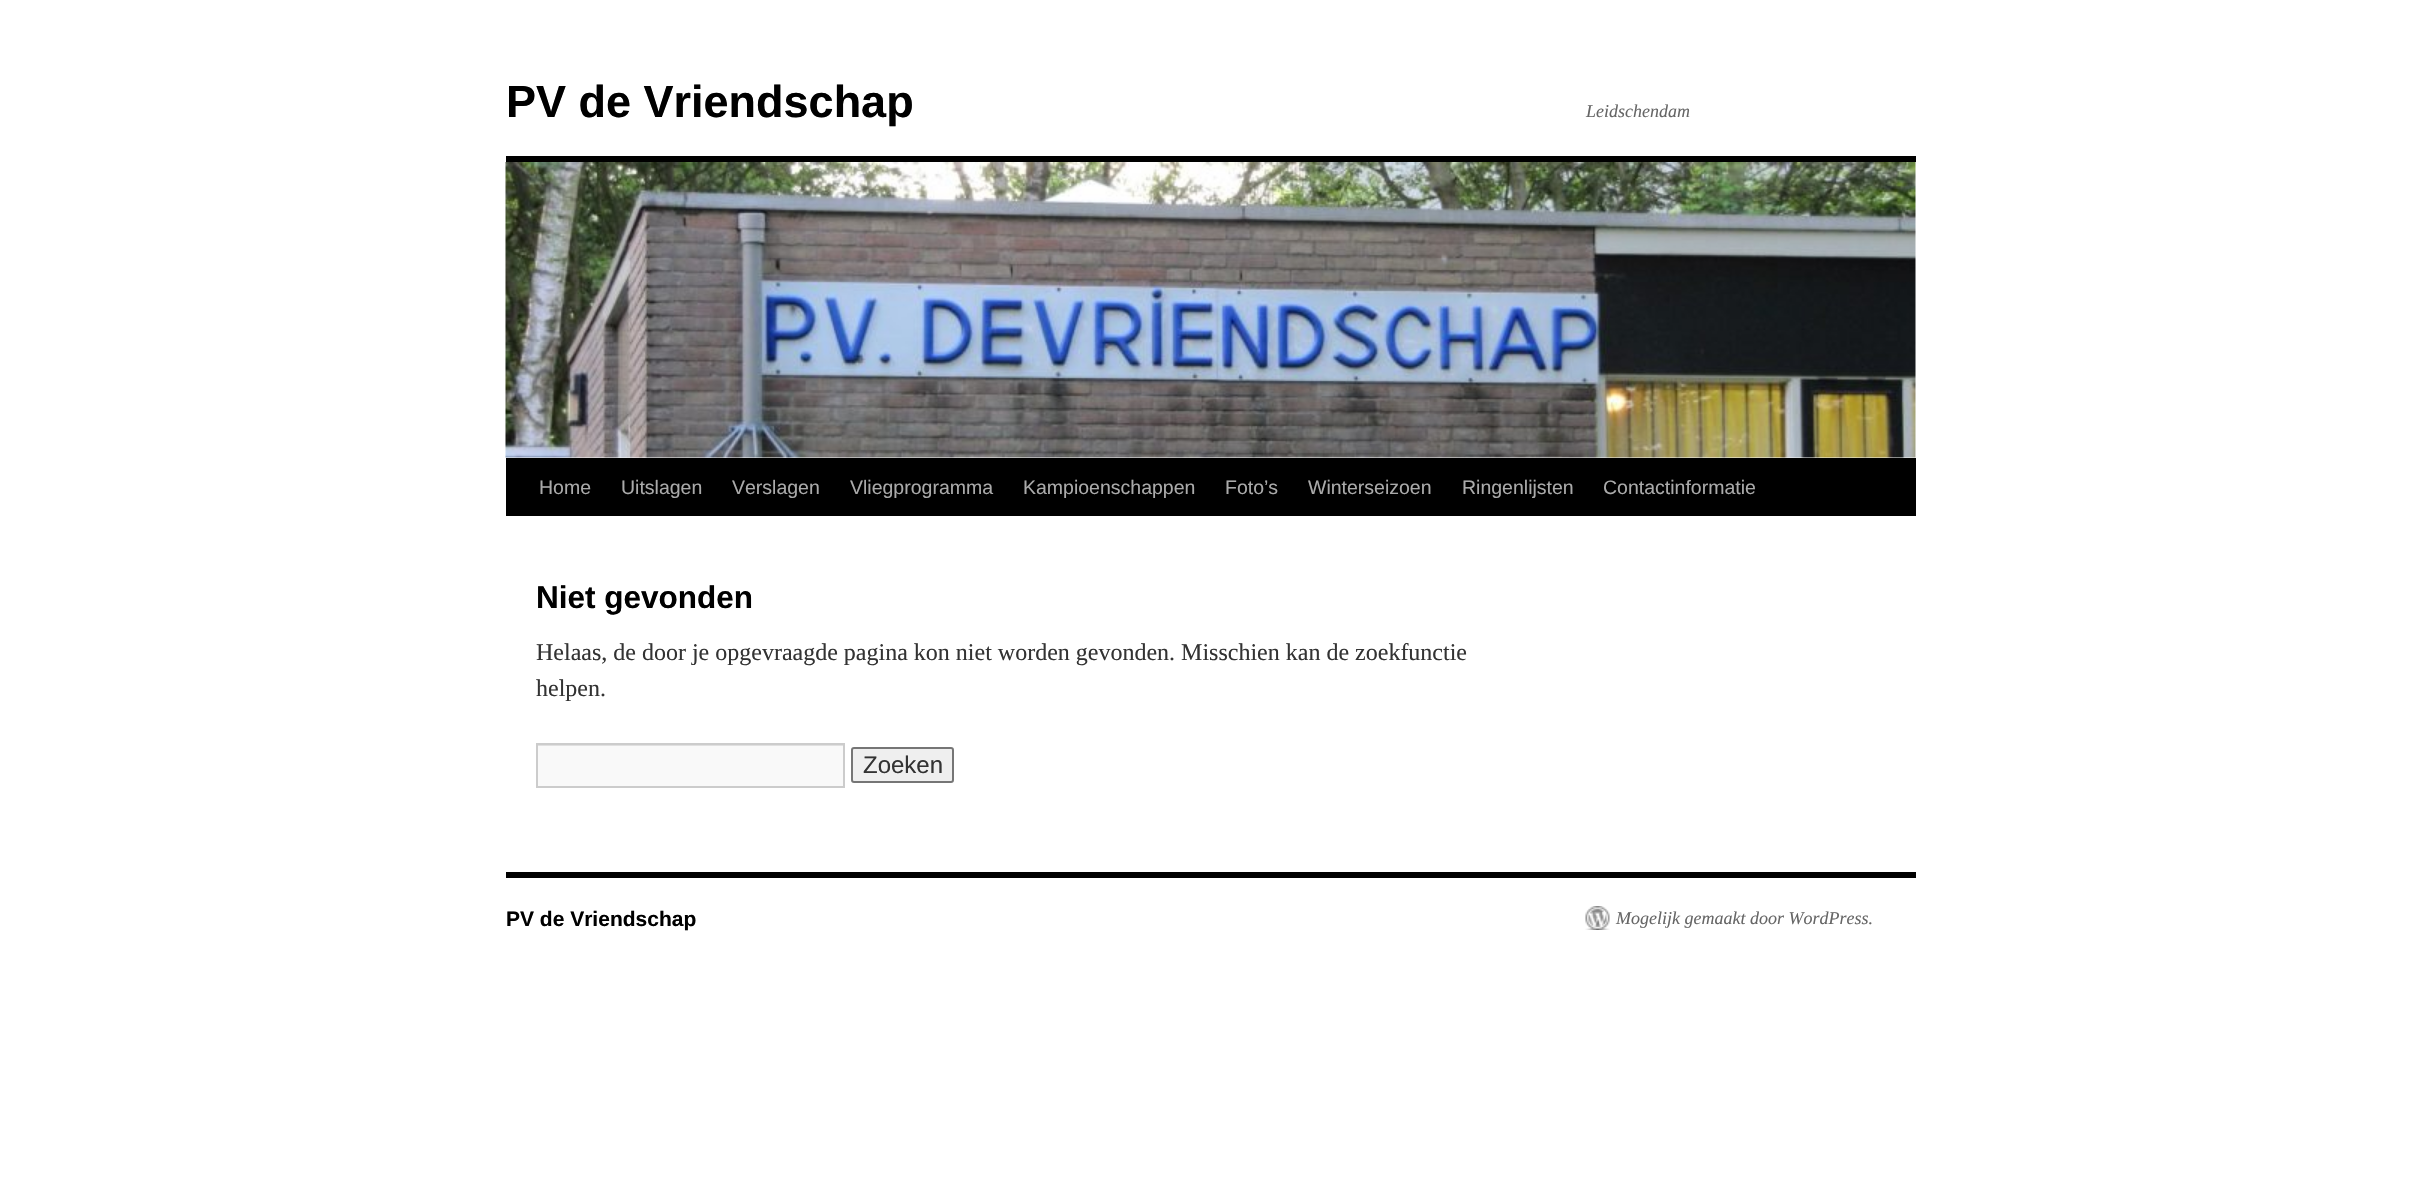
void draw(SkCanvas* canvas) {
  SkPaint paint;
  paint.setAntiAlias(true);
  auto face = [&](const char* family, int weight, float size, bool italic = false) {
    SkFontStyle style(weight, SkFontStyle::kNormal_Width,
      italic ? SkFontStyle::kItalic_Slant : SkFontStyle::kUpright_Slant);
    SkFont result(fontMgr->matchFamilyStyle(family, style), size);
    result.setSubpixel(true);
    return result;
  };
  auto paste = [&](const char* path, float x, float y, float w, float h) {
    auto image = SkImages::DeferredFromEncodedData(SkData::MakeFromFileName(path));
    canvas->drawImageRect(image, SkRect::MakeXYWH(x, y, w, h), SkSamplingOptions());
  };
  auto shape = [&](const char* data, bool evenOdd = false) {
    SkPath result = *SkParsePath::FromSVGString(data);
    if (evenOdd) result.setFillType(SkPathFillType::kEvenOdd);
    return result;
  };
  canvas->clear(0xffffffff);
  paint.setColor(0xff000000);
  canvas->drawRect(SkRect::MakeXYWH(506, 156, 1410, 6), paint);
  canvas->drawRect(SkRect::MakeXYWH(506, 458, 1410, 58), paint);
  paste("img/1.png", 505, 162, 1411, 296);
  paint.setColor(0xfff9f9f9);
  canvas->drawRect(SkRect::MakeXYWH(538, 746, 305, 40), paint);
  canvas->save();
  canvas->clipRect(SkRect::MakeXYWH(537, 744, 306, 42));
  paint.setColor(0xffe0e0e0);
  canvas->drawPath(shape("M388 596H992V934H388ZM538 746H844V788H538Z", true), paint);
  canvas->restore();
  paint.setStroke(true);
  paint.setStrokeWidth(2);
  paint.setColor(0xffcccccc);
  canvas->drawRect(SkRect::MakeXYWH(537, 744, 307, 43), paint);
  paint.setStroke(false);
  paint.setColor(0xffefefef);
  canvas->drawRoundRect(SkRect::MakeXYWH(852, 748, 101, 34), 2, 2, paint);
  paint.setStroke(true);
  paint.setColor(0xff767676);
  canvas->drawRoundRect(SkRect::MakeXYWH(852, 748, 101, 34), 2, 2, paint);
  paint.setStroke(false);
  paint.setColor(0xff000000);
  canvas->drawRect(SkRect::MakeXYWH(506, 872, 1410, 6), paint);
  paste("img/2.png", 1585, 906, 25, 24);
  auto f0 = face("Liberation Sans", 700, 45);
  canvas->drawString("PV de Vriendschap", 506, 117, f0, paint);
  auto f1 = face("Liberation Serif", 400, 18, true);
  paint.setColor(0xff666666);
  canvas->drawString("Leidschendam", 1586, 117, f1, paint);
  auto f2 = face("Liberation Sans", 400, 19.5f);
  paint.setColor(0xffaaaaaa);
  {
    const struct { const char* s; float x, y; } items[] = {
      {"Home", 539, 494},
      {"Uitslagen", 621, 494},
      {"Verslagen", 732, 494},
      {"Vliegprogramma", 850, 494},
      {"Kampioenschappen", 1023, 494},
      {"Foto’s", 1225, 494},
      {"Winterseizoen", 1308, 494},
      {"Ringenlijsten", 1462, 494},
      {"Contactinformatie", 1603, 494},
    };
    for (auto [s, x, y] : items) {
      canvas->drawString(s, x, y, f2, paint);
    }
  }
  auto f3 = face("Liberation Sans", 700, 31.5f);
  paint.setColor(0xff000000);
  canvas->drawString("Niet gevonden", 536, 608, f3, paint);
  auto f4 = face("Liberation Serif", 400, 24);
  paint.setColor(0xff333333);
  canvas->drawString("Helaas, de door je opgevraagde pagina kon niet worden gevonden. Misschien kan de zoekfunctie", 536, 660, f4, paint);
  canvas->drawString("helpen.", 536, 696, f4, paint);
  auto f5 = face("Liberation Sans", 400, 24);
  canvas->drawString("Zoeken", 863, 773, f5, paint);
  auto f6 = face("Liberation Sans", 700, 21);
  paint.setColor(0xff000000);
  canvas->drawString("PV de Vriendschap", 506, 926, f6, paint);
  paint.setColor(0xff666666);
  canvas->drawString("Mogelijk gemaakt door WordPress.", 1616, 924, f1, paint);
}
